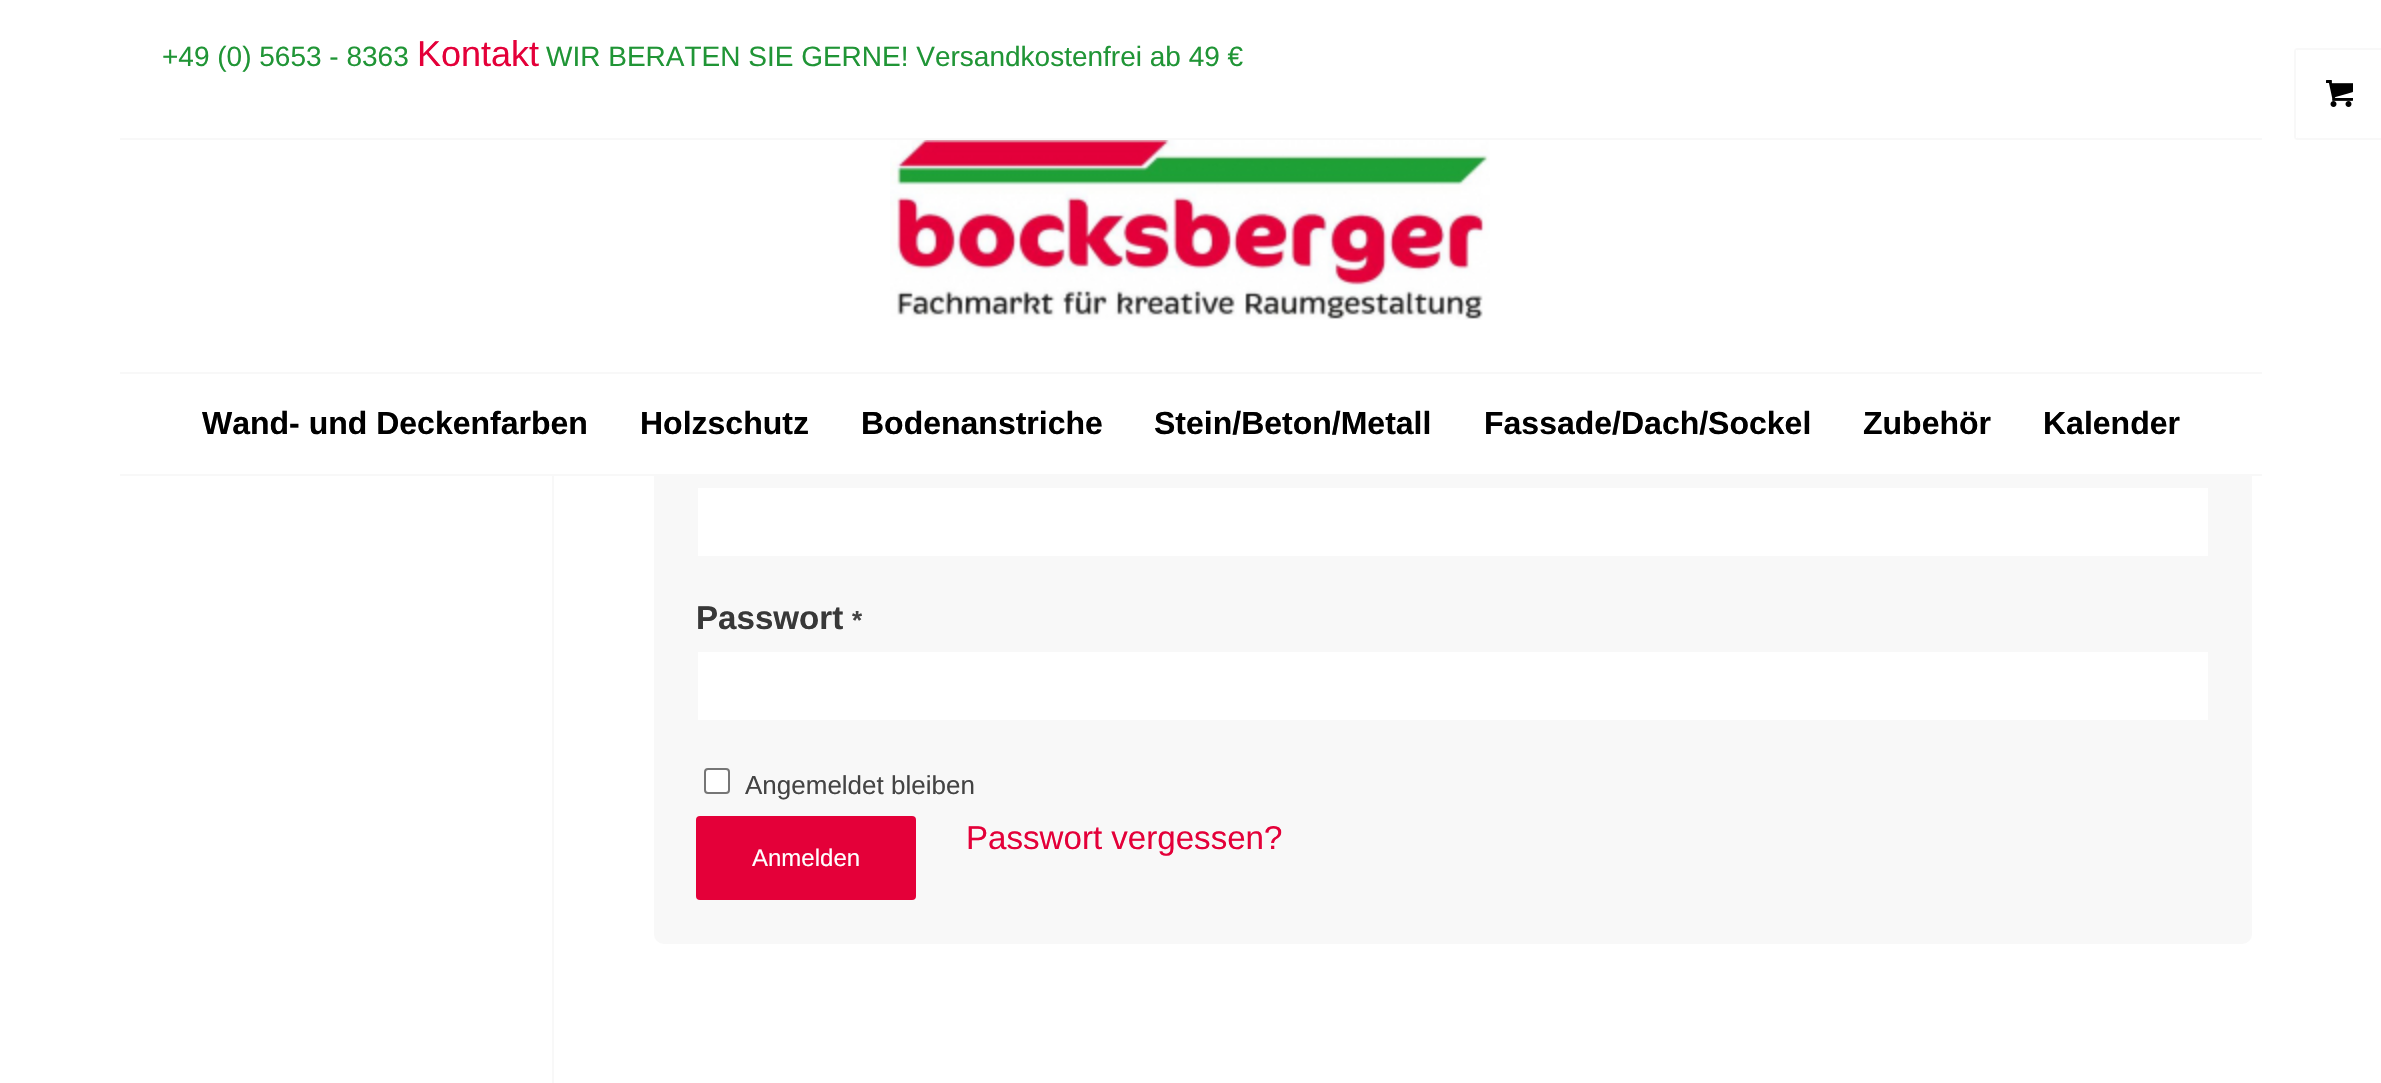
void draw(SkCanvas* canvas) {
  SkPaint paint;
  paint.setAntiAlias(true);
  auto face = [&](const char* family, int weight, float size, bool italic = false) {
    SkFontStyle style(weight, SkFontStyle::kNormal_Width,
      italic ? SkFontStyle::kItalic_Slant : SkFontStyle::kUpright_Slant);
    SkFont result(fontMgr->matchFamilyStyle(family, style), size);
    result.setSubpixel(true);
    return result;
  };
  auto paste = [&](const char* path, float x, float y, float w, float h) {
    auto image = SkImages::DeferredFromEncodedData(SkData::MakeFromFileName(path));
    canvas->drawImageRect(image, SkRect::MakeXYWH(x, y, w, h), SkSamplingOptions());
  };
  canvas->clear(0xffffffff);
  {
    const struct { float x, y, w, h; SkColor color; } items[] = {
      {120, 138, 2142, 2, 0xfff8f8f8},
      {120, 194, 2142, 2, 0xfff8f8f8},
      {552, 196, 2, 887, 0xfff8f8f8},
    };
    for (auto [x, y, w, h, color] : items) {
      paint.setColor(color);
      canvas->drawRect(SkRect::MakeXYWH(x, y, w, h), paint);
    }
  }
  canvas->drawRoundRect(SkRect::MakeXYWH(654, 376, 1598, 568), 10, 10, paint);
  paint.setColor(0xf2ffffff);
  canvas->drawRect(SkRect::MakeXYWH(120, 194, 2142, 280), paint);
  paint.setColor(0xfff8f8f8);
  canvas->drawRect(SkRect::MakeXYWH(120, 474, 2142, 2), paint);
  paint.setStroke(true);
  paint.setStrokeWidth(2);
  canvas->drawRoundRect(SkRect::MakeXYWH(2295, 49, 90, 90), 3, 3, paint);
  paint.setStroke(false);
  paint.setColor(0xffffffff);
  canvas->drawRect(SkRect::MakeXYWH(2296, 50, 1, 88), paint);
  paste("img/1.png", 2326, 80, 27, 27);
  paste("img/2.png", 890, 140, 600, 180);
  {
    const struct { float x, y, w, h; SkColor color; } items[] = {
      {120, 372, 2142, 2, 0xfff8f8f8},
      {698, 488, 1510, 68, 0xffffffff},
      {698, 652, 1510, 68, 0xffffffff},
    };
    for (auto [x, y, w, h, color] : items) {
      paint.setColor(color);
      canvas->drawRect(SkRect::MakeXYWH(x, y, w, h), paint);
    }
  }
  canvas->drawRoundRect(SkRect::MakeXYWH(705, 769, 24, 24), 3, 3, paint);
  paint.setStroke(true);
  paint.setColor(0xff767676);
  canvas->drawRoundRect(SkRect::MakeXYWH(705, 769, 24, 24), 3, 3, paint);
  paint.setStroke(false);
  paint.setColor(0xffe40039);
  canvas->drawRoundRect(SkRect::MakeXYWH(696, 816, 220, 84), 4, 4, paint);
  auto f0 = face("Liberation Sans", 400, 28);
  paint.setColor(0xff209536);
  canvas->drawString("+49 (0) 5653 - 8363", 162, 66, f0, paint);
  auto f1 = face("Liberation Sans", 400, 36);
  paint.setColor(0xffe40039);
  canvas->drawString("Kontakt", 417, 66, f1, paint);
  paint.setColor(0xff209536);
  canvas->drawString("WIR BERATEN SIE GERNE! Versandkostenfrei ab 49 €", 546, 66, f0, paint);
  auto f2 = face("Liberation Sans", 700, 32);
  paint.setColor(0xff000000);
  {
    const struct { const char* s; float x, y; } items[] = {
      {"Wand- und Deckenfarben", 202, 434},
      {"Holzschutz", 640, 434},
      {"Bodenanstriche", 861, 434},
      {"Stein/Beton/Metall", 1154, 434},
      {"Fassade/Dach/Sockel", 1484, 434},
      {"Zubehör", 1863, 434},
      {"Kalender", 2043, 434},
    };
    for (auto [s, x, y] : items) {
      canvas->drawString(s, x, y, f2, paint);
    }
  }
  auto f3 = face("Liberation Sans", 700, 33.1f);
  paint.setColor(0xff383838);
  canvas->drawString("Passwort", 696, 629, f3, paint);
  auto f4 = face("Liberation Sans", 700, 26);
  paint.setColor(0xff444444);
  canvas->drawString("*", 852, 629, f4, paint);
  auto f5 = face("Liberation Sans", 400, 26);
  canvas->drawString("Angemeldet bleiben", 745, 794, f5, paint);
  auto f6 = face("Liberation Sans", 400, 24);
  paint.setColor(0xffffffff);
  canvas->drawString("Anmelden", 752, 866, f6, paint);
  auto f7 = face("Liberation Sans", 400, 33.1f);
  paint.setColor(0xffe40039);
  canvas->drawString("Passwort vergessen?", 966, 849, f7, paint);
}
